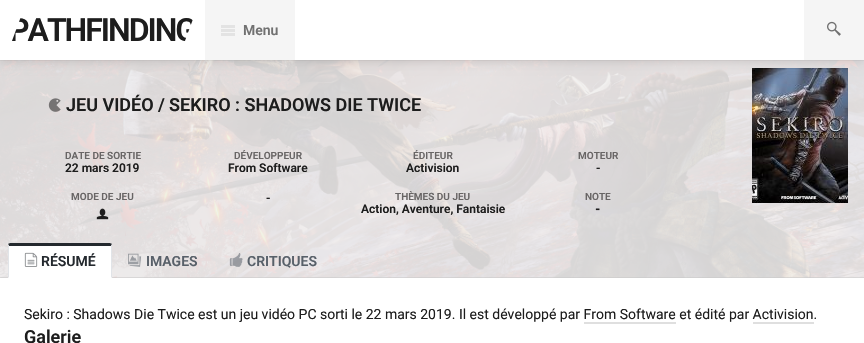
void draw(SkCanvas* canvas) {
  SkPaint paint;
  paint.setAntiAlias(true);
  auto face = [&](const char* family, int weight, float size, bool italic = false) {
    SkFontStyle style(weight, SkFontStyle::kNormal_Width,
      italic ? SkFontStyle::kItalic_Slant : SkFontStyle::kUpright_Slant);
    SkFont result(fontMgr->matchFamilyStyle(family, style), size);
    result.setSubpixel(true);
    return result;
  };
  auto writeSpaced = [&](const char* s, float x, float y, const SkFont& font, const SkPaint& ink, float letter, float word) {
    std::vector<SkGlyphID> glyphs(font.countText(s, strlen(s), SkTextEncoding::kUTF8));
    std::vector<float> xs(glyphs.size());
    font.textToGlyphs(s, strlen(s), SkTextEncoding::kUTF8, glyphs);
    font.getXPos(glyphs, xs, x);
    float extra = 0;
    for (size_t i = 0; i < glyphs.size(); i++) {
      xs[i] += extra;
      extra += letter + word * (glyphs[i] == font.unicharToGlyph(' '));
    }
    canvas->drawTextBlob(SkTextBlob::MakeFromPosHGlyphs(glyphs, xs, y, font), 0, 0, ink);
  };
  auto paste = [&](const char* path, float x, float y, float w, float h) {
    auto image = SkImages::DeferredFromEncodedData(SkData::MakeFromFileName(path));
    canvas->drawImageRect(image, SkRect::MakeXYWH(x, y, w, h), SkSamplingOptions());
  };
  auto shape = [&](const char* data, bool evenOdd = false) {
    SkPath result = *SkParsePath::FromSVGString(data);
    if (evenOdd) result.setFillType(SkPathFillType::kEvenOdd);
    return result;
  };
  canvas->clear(0xffffffff);
  paste("img/2.png", 0, 60, 864, 218);
  paint.setStroke(true);
  paint.setStrokeWidth(1);
  paint.setColor(0x0a000000);
  canvas->drawRect(SkRect::MakeXYWH(-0.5f, -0.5f, 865, 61), paint);
  paste("img/5.png", 752, 68, 96, 135);
  paint.setStroke(false);
  paint.setColor(0x1a000000);
  paint.setMaskFilter(SkMaskFilter::MakeBlur(kNormal_SkBlurStyle, 4.5f));
  canvas->drawRect(SkRect::MakeXYWH(0, 3, 864, 60), paint);
  paint.setMaskFilter(nullptr);
  {
    const struct { float x, y, w, h; SkColor color; } items[] = {
      {0, 0, 804, 60, 0xffffffff},
      {205, 0, 90, 60, 0xfff5f5f5},
      {221, 25, 14, 3, 0xffe3e3e3},
      {221, 29, 14, 3, 0xffe3e3e3},
      {221, 33, 14, 3, 0xffe3e3e3},
      {804, 0, 60, 60, 0xfff5f5f5},
    };
    for (auto [x, y, w, h, color] : items) {
      paint.setColor(color);
      canvas->drawRect(SkRect::MakeXYWH(x, y, w, h), paint);
    }
  }
  paste("img/1.png", 827, 21, 14, 15);
  paint.setColor(0x8ac8c8c8);
  canvas->drawRect(SkRect::MakeXYWH(0, 277, 864, 1), paint);
  paste("img/3.png", 48, 98, 13, 14);
  paste("img/4.png", 96, 208, 13, 12);
  paint.setColor(0xffffffff);
  canvas->drawPath(shape("M11 243H109C110.5 243 112 244.5 112 246V278H8V246C8 244.5 9.5 243 11 243Z"), paint);
  paint.setColor(0xff24292e);
  canvas->drawPath(shape("M11 243C10 243 9 243 8 244L9 246H111L112 244C111 243 110 243 109 243Z"), paint);
  paint.setColor(0xffe1e4e8);
  canvas->drawPath(shape("M112 278V246L111.5 244L111 246V277Z"), paint);
  canvas->drawPath(shape("M8 278L9 277V246L8.5 244L8 246Z"), paint);
  paste("img/6.png", 24, 252, 14, 15);
  paste("img/7.png", 128, 253, 14, 14);
  paste("img/8.png", 229, 253, 14, 14);
  paint.setColor(0xffdfdfdf);
  canvas->drawRect(SkRect::MakeXYWH(584, 322, 92, 2), paint);
  canvas->drawRect(SkRect::MakeXYWH(753, 322, 61, 2), paint);
  canvas->save();
  canvas->clipPath(shape("M27 0H200L178 60H5Z"), true);
  auto f0 = face("Roboto", 600, 32);
  paint.setColor(0xff1d1d1d);
  writeSpaced("PATHFINDING", 9, 41, f0, paint, -2, 0);
  canvas->restore();
  auto f1 = face("Roboto", 600, 14);
  paint.setColor(0xff717171);
  canvas->drawString("Menu", 243, 35, f1, paint);
  auto f2 = face("Roboto", 600, 18);
  paint.setColor(0xff1d1d1d);
  canvas->drawString("JEU VIDÉO /", 66, 111, f2, paint);
  canvas->drawString("SEKIRO : SHADOWS DIE TWICE", 169, 111, f2, paint);
  auto f3 = face("Roboto", 600, 10);
  paint.setColor(0xff686565);
  canvas->drawString("DATE DE SORTIE", 65, 159, f3, paint);
  auto f4 = face("Roboto", 600, 12);
  paint.setColor(0xff1d1d1d);
  canvas->drawString("22 mars 2019", 65, 172, f4, paint);
  paint.setColor(0xff686565);
  canvas->drawString("DÉVELOPPEUR", 234, 159, f3, paint);
  paint.setColor(0xff1d1d1d);
  canvas->drawString("From Software", 228, 172, f4, paint);
  paint.setColor(0xff686565);
  canvas->drawString("ÉDITEUR", 413, 159, f3, paint);
  paint.setColor(0xff1d1d1d);
  canvas->drawString("Activision", 406, 172, f4, paint);
  paint.setColor(0xff686565);
  canvas->drawString("MOTEUR", 578, 159, f3, paint);
  paint.setColor(0xff1d1d1d);
  canvas->drawString("-", 596, 172, f4, paint);
  paint.setColor(0xff686565);
  canvas->drawString("MODE DE JEU", 71, 200, f3, paint);
  paint.setColor(0xff1d1d1d);
  canvas->drawString("-", 266, 202, f4, paint);
  paint.setColor(0xff686565);
  canvas->drawString("THÈMES DU JEU", 395, 200, f3, paint);
  paint.setColor(0xff1d1d1d);
  canvas->drawString("Action, Aventure, Fantaisie", 361, 213, f4, paint);
  paint.setColor(0xff686565);
  canvas->drawString("NOTE", 585, 200, f3, paint);
  auto f5 = face("Roboto", 900, 12);
  paint.setColor(0xff1d1d1d);
  canvas->drawString("-", 595, 213, f5, paint);
  paint.setColor(0xff24292e);
  canvas->drawString("RÉSUMÉ", 41, 266, f1, paint);
  paint.setColor(0xff586069);
  canvas->drawString("IMAGES", 146, 266, f1, paint);
  canvas->drawString("CRITIQUES", 247, 266, f1, paint);
  auto f6 = face("Roboto", 400, 14);
  paint.setColor(0xff1d1d1d);
  canvas->drawString("Sekiro : Shadows Die Twice est un jeu vidéo PC sorti le 22 mars 2019. Il est développé par From Software et édité par Activision.", 24, 319, f6, paint);
  canvas->drawString("Galerie", 24, 343, f2, paint);
}
